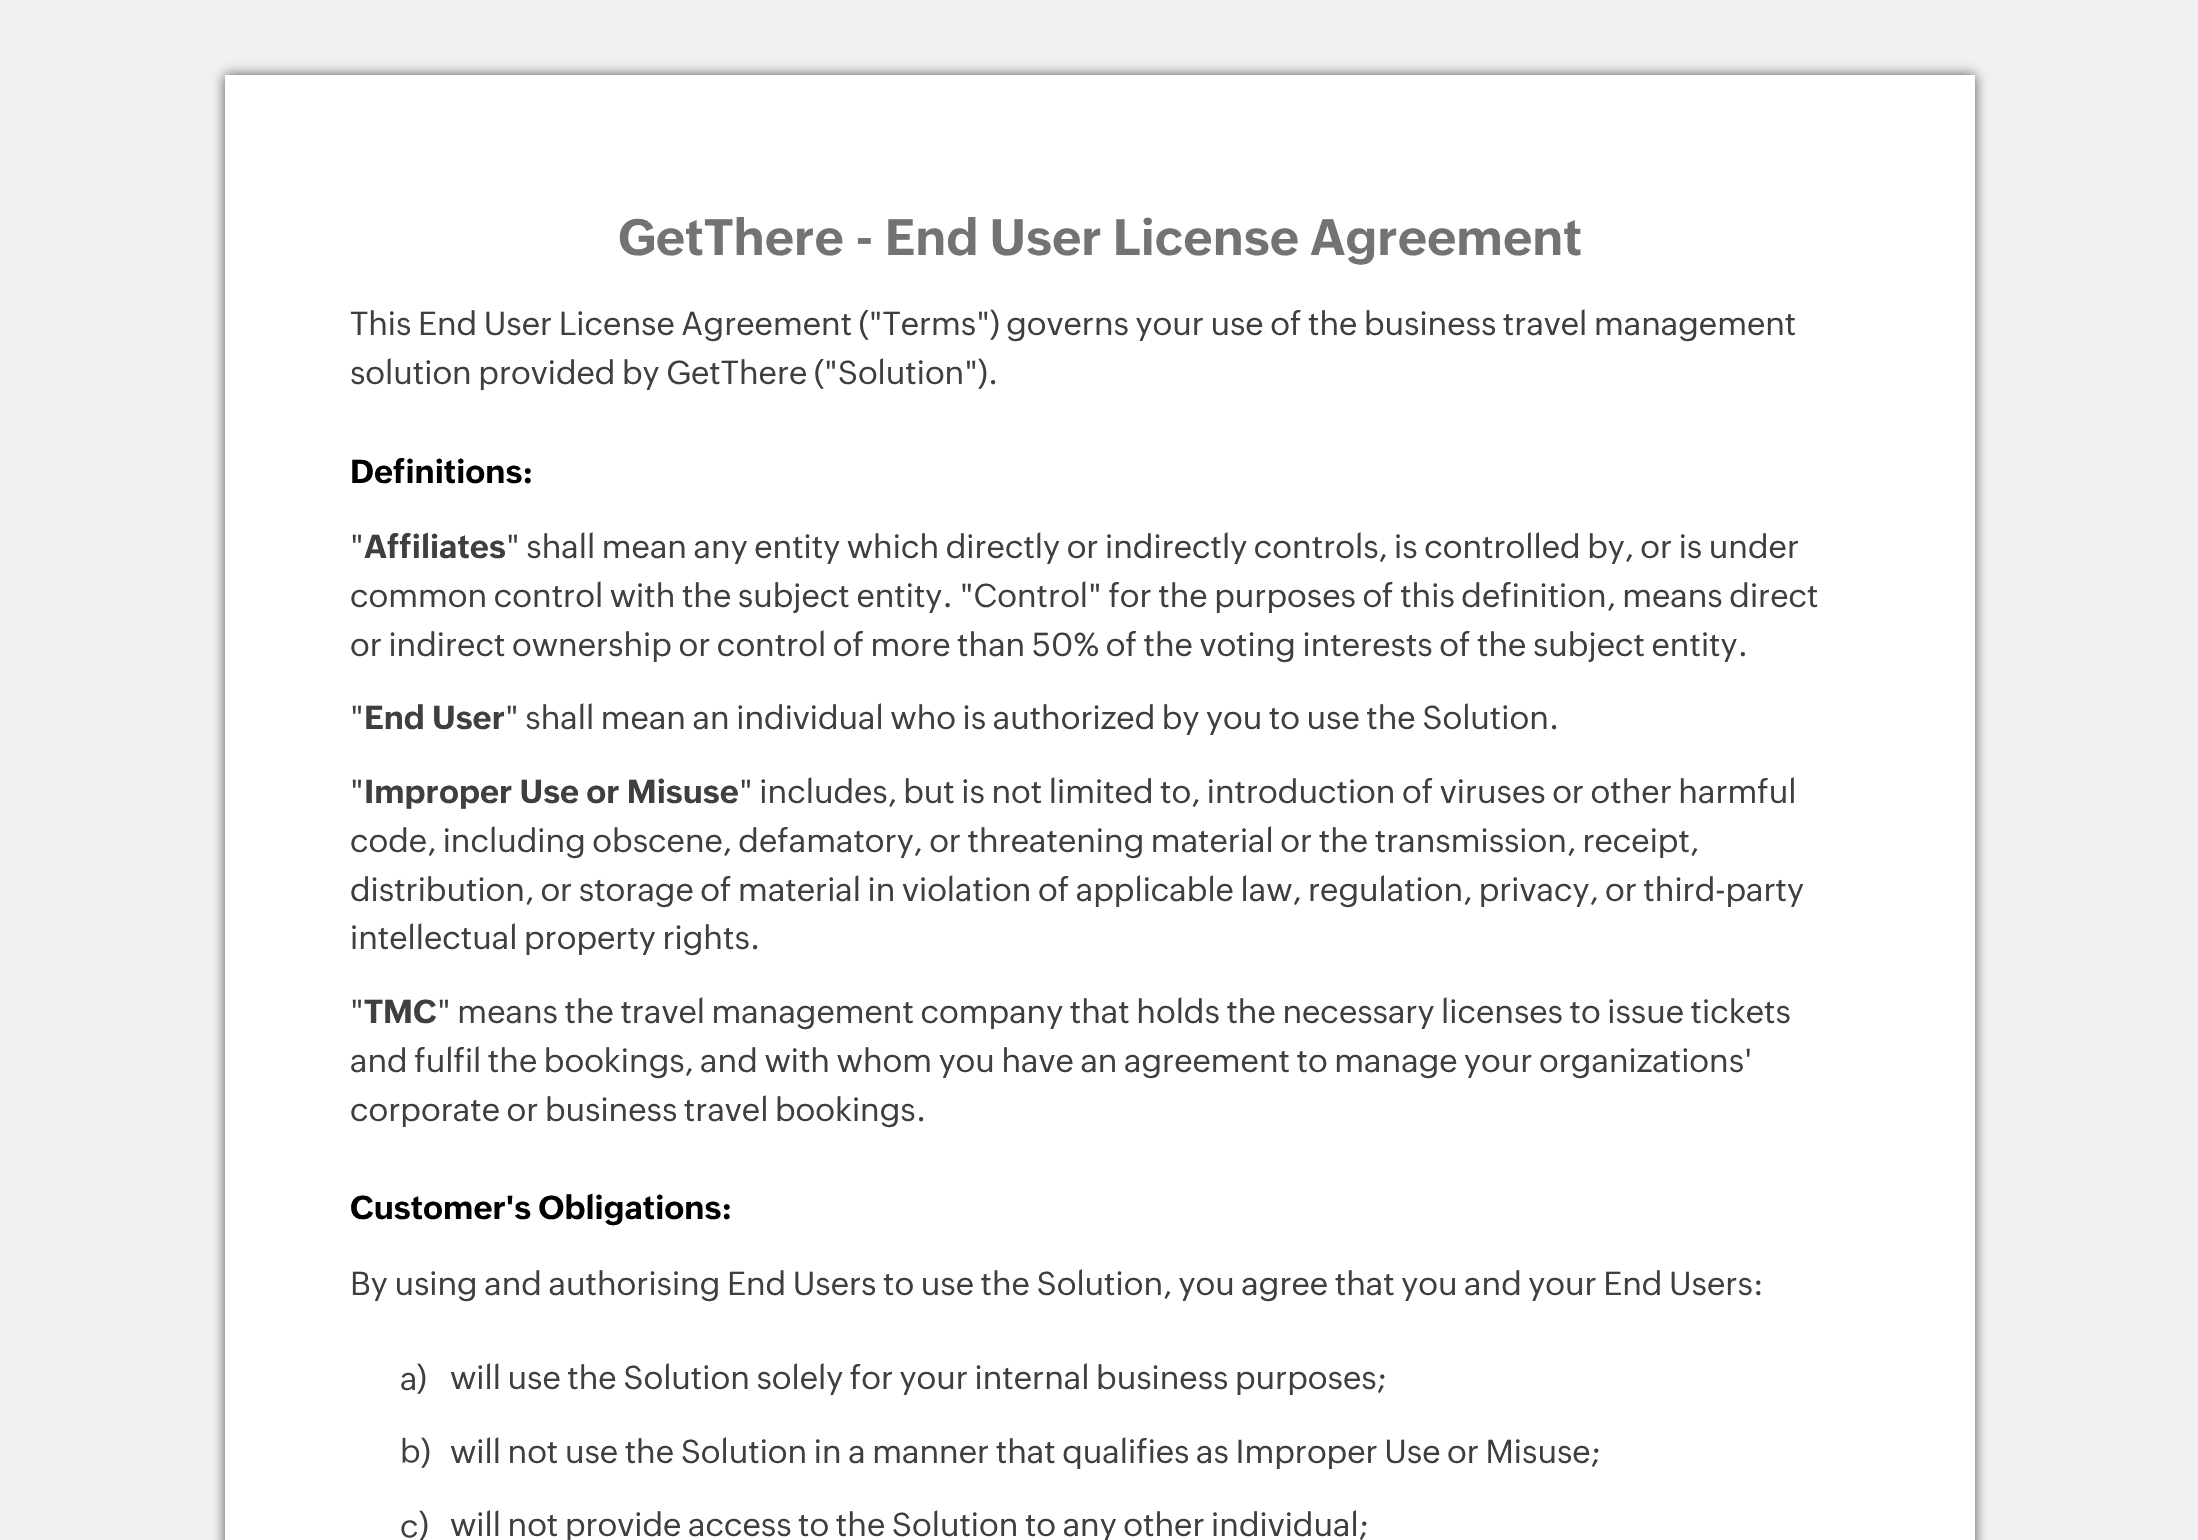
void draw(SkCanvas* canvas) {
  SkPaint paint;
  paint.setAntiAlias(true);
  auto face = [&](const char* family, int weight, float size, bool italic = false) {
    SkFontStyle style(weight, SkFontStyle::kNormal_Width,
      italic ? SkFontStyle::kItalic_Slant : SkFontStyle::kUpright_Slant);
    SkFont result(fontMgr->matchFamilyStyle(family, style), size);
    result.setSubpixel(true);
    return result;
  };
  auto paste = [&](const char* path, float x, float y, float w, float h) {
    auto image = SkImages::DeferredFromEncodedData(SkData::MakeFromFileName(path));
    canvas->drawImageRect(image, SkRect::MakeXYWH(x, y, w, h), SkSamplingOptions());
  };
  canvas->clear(0xfff1f1f1);
  paint.setColor(0xff535353);
  paint.setMaskFilter(SkMaskFilter::MakeBlur(kNormal_SkBlurStyle, 6));
  canvas->drawRect(SkRect::MakeXYWH(225, 75, 1750, 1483), paint);
  paint.setMaskFilter(nullptr);
  paint.setColor(0xffffffff);
  canvas->drawRect(SkRect::MakeXYWH(225, 75, 1750, 1465), paint);
  paste("img/1.png", 401, 1372, 14, 19);
  paste("img/2.png", 402, 1437, 18, 26);
  paste("img/3.png", 401, 1520, 17, 18);
  auto f0 = face("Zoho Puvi", 700, 50);
  paint.setColor(0xff737373);
  canvas->drawString("GetThere - End User License Agreement", 618, 255, f0, paint);
  auto f1 = face("Zoho Puvi", 400, 32.5f);
  paint.setColor(0xff403f3f);
  canvas->drawString("This End User License Agreement (\"Terms\") governs your use of the business travel management", 350, 335, f1, paint);
  canvas->drawString("solution provided by GetThere (\"Solution\").", 350, 384, f1, paint);
  auto f2 = face("Zoho Puvi", 700, 32.5f);
  paint.setColor(0xff000000);
  canvas->drawString("Definitions:", 350, 483, f2, paint);
  paint.setColor(0xff403f3f);
  canvas->drawString("\"", 350, 558, f1, paint);
  canvas->drawString("Affiliates", 364, 558, f2, paint);
  {
    const struct { const char* s; float x, y; } items[] = {
      {"\" shall mean any entity which directly or indirectly controls, is controlled by, or is under", 506, 558},
      {"common control with the subject entity. \"Control\" for the purposes of this definition, means direct", 350, 607},
      {"or indirect ownership or control of more than 50% of the voting interests of the subject entity.", 350, 656},
      {"\"", 350, 729},
    };
    for (auto [s, x, y] : items) {
      canvas->drawString(s, x, y, f1, paint);
    }
  }
  canvas->drawString("End User", 364, 729, f2, paint);
  canvas->drawString("\" shall mean an individual who is authorized by you to use the Solution.", 505, 729, f1, paint);
  canvas->drawString("\"", 350, 803, f1, paint);
  canvas->drawString("Improper Use or Misuse", 364, 803, f2, paint);
  {
    const struct { const char* s; float x, y; } items[] = {
      {"\" includes, but is not limited to, introduction of viruses or other harmful", 739, 803},
      {"code, including obscene, defamatory, or threatening material or the transmission, receipt,", 350, 852},
      {"distribution, or storage of material in violation of applicable law, regulation, privacy, or third-party", 350, 901},
      {"intellectual property rights.", 350, 949},
      {"\"", 350, 1023},
    };
    for (auto [s, x, y] : items) {
      canvas->drawString(s, x, y, f1, paint);
    }
  }
  canvas->drawString("TMC", 364, 1023, f2, paint);
  {
    const struct { const char* s; float x, y; } items[] = {
      {"\" means the travel management company that holds the necessary licenses to issue tickets", 437, 1023},
      {"and fulfil the bookings, and with whom you have an agreement to manage your organizations'", 350, 1072},
      {"corporate or business travel bookings.", 350, 1121},
    };
    for (auto [s, x, y] : items) {
      canvas->drawString(s, x, y, f1, paint);
    }
  }
  paint.setColor(0xff000000);
  canvas->drawString("Customer's Obligations:", 350, 1219, f2, paint);
  paint.setColor(0xff403f3f);
  {
    const struct { const char* s; float x, y; } items[] = {
      {"By using and authorising End Users to use the Solution, you agree that you and your End Users:", 350, 1295},
      {")", 417, 1389},
      {"will use the Solution solely for your internal business purposes;", 450, 1389},
      {")", 421, 1463},
      {"will not use the Solution in a manner that qualifies as Improper Use or Misuse;", 450, 1463},
      {")", 419, 1536},
      {"will not provide access to the Solution to any other individual;", 450, 1536},
    };
    for (auto [s, x, y] : items) {
      canvas->drawString(s, x, y, f1, paint);
    }
  }
}
